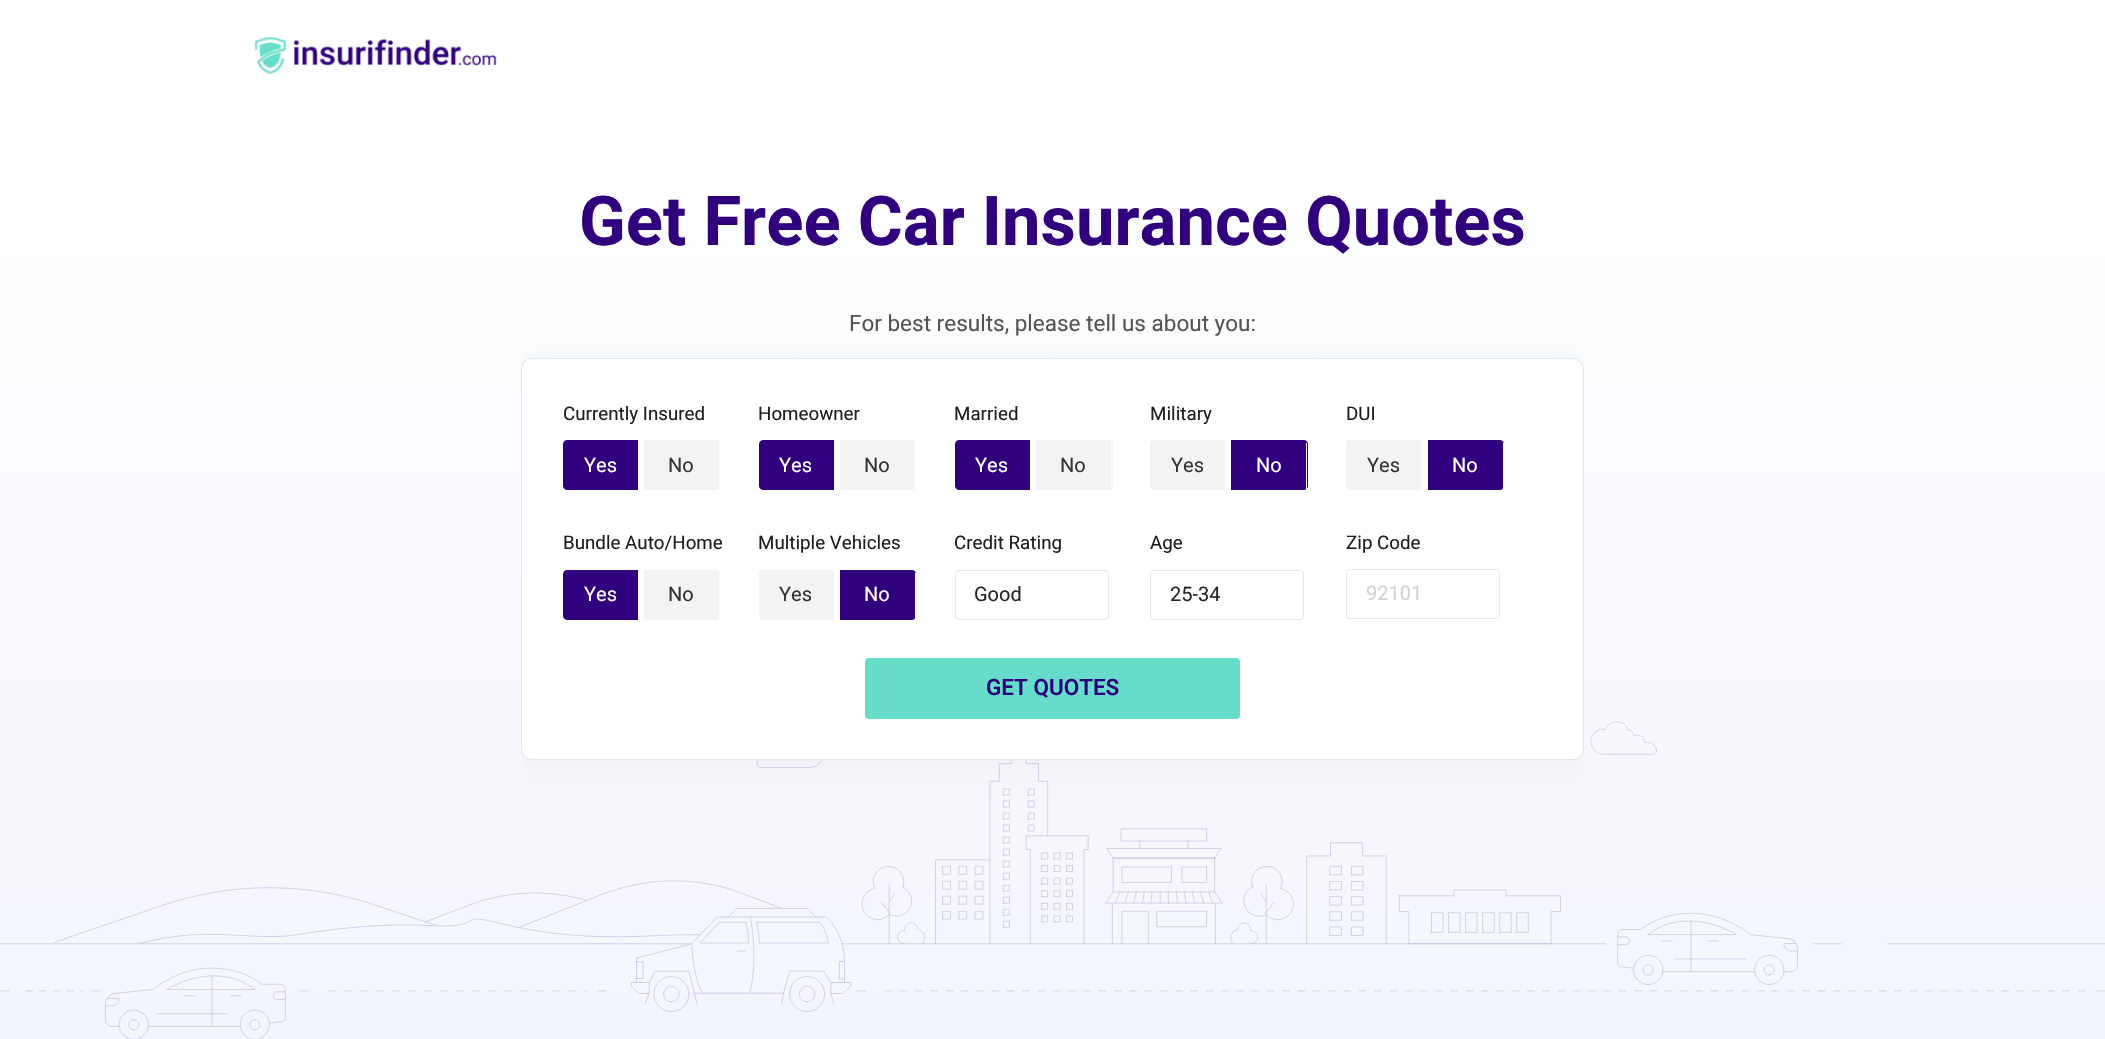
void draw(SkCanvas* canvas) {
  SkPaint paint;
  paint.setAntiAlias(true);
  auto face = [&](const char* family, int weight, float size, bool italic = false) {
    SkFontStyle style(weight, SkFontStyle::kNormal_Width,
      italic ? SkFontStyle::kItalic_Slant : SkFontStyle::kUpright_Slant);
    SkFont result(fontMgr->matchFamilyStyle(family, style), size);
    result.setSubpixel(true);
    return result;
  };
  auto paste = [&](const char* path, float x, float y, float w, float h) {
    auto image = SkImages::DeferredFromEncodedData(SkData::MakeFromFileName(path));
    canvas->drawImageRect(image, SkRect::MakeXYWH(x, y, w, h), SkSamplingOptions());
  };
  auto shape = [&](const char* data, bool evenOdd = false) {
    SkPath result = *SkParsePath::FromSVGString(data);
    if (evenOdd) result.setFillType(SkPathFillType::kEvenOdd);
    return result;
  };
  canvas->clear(0xffffffff);
  paste("img/1.png", 254, 36, 243, 39);
  {
    const SkColor colors[] = {0xfff3f5fd, 0xffffffff};
    const float stops[] = {0, 1};
    const SkPoint ends[] = {{1053, 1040}, {1053, 0}};
    paint.setShader(SkGradientShader::MakeLinear(ends, colors, stops, 2, SkTileMode::kClamp));
    paint.setAlpha(255);
  }
  canvas->drawRect(SkRect::MakeXYWH(0, 217, 2105, 822), paint);
  paste("img/2.png", 0, 721, 2105, 318);
  canvas->save();
  canvas->clipRect(SkRect::MakeXYWH(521, 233, 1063, 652));
  paint.setShader(nullptr);
  paint.setColor(0x0a000000);
  paint.setMaskFilter(SkMaskFilter::MakeBlur(kNormal_SkBlurStyle, 15));
  canvas->drawRoundRect(SkRect::MakeXYWH(521, 363, 1063, 402), 11, 11, paint);
  paint.setMaskFilter(nullptr);
  canvas->restore();
  paint.setColor(0xffffffff);
  canvas->drawRoundRect(SkRect::MakeXYWH(521.5f, 358.5f, 1062, 401), 10.5f, 10.5f, paint);
  paint.setStroke(true);
  paint.setStrokeWidth(1);
  paint.setColor(0xffe1e8ed);
  canvas->drawRoundRect(SkRect::MakeXYWH(521.5f, 358.5f, 1062, 401), 10.5f, 10.5f, paint);
  paint.setStroke(false);
  paint.setColor(0xff30007f);
  canvas->drawPath(shape("M567 440H639V490H567C565 490 563 488 563 486V444C563 442 565 440 567 440Z"), paint);
  paint.setColor(0xffffffff);
  canvas->drawRect(SkRect::MakeXYWH(638, 440, 1, 50), paint);
  paint.setColor(0xfff2f3f5);
  canvas->drawPath(shape("M644 440H716C718 440 720 442 720 444V486C720 488 718 490 716 490H644Z"), paint);
  paint.setColor(0xffffffff);
  canvas->drawRect(SkRect::MakeXYWH(719, 443, 1, 46), paint);
  paint.setColor(0xff30007f);
  canvas->drawPath(shape("M763 440H835V490H763C761 490 759 488 759 486V444C759 442 761 440 763 440Z"), paint);
  paint.setColor(0xffffffff);
  canvas->drawRect(SkRect::MakeXYWH(834, 440, 1, 50), paint);
  paint.setColor(0xfff2f3f5);
  canvas->drawPath(shape("M840 440H912C914 440 916 442 916 444V486C916 488 914 490 912 490H840Z"), paint);
  paint.setColor(0xffffffff);
  canvas->drawRect(SkRect::MakeXYWH(915, 443, 1, 46), paint);
  paint.setColor(0xff30007f);
  canvas->drawPath(shape("M959 440H1031V490H959C957 490 955 488 955 486V444C955 442 957 440 959 440Z"), paint);
  paint.setColor(0xffffffff);
  canvas->drawRect(SkRect::MakeXYWH(1030, 440, 1, 50), paint);
  paint.setColor(0xfff2f3f5);
  canvas->drawPath(shape("M1036 440H1109C1111 440 1113 442 1113 444V486C1113 488 1111 490 1109 490H1036Z"), paint);
  paint.setColor(0xffffffff);
  canvas->drawRect(SkRect::MakeXYWH(1111, 443, 1, 46), paint);
  paint.setColor(0xfff2f3f5);
  canvas->drawPath(shape("M1154 440H1226V490H1154C1152 490 1150 488 1150 486V444C1150 442 1152 440 1154 440Z"), paint);
  paint.setColor(0xffffffff);
  canvas->drawRect(SkRect::MakeXYWH(1225, 440, 1, 50), paint);
  paint.setColor(0xff30007f);
  canvas->drawPath(shape("M1231 440H1304C1306 440 1308 442 1308 444V486C1308 488 1306 490 1304 490H1231Z"), paint);
  paint.setColor(0xffffffff);
  canvas->drawRect(SkRect::MakeXYWH(1306, 443, 1, 46), paint);
  paint.setColor(0xfff2f3f5);
  canvas->drawPath(shape("M1350 440H1423V490H1350C1348 490 1346 488 1346 486V444C1346 442 1348 440 1350 440Z"), paint);
  paint.setColor(0xffffffff);
  canvas->drawRect(SkRect::MakeXYWH(1421, 440, 1, 50), paint);
  paint.setColor(0xff30007f);
  canvas->drawPath(shape("M1428 440H1500C1502 440 1504 442 1504 444V486C1504 488 1502 490 1500 490H1428Z"), paint);
  paint.setColor(0xffffffff);
  canvas->drawRect(SkRect::MakeXYWH(1503, 443, 1, 46), paint);
  paint.setColor(0xff30007f);
  canvas->drawPath(shape("M567 570H639V620H567C565 620 563 618 563 616V574C563 572 565 570 567 570Z"), paint);
  paint.setColor(0xffffffff);
  canvas->drawRect(SkRect::MakeXYWH(638, 570, 1, 50), paint);
  paint.setColor(0xfff2f3f5);
  canvas->drawPath(shape("M644 570H716C718 570 720 572 720 574V616C720 618 718 620 716 620H644Z"), paint);
  paint.setColor(0xffffffff);
  canvas->drawRect(SkRect::MakeXYWH(719, 573, 1, 46), paint);
  paint.setColor(0xfff2f3f5);
  canvas->drawPath(shape("M763 570H835V620H763C761 620 759 618 759 616V574C759 572 761 570 763 570Z"), paint);
  paint.setColor(0xffffffff);
  canvas->drawRect(SkRect::MakeXYWH(834, 570, 1, 50), paint);
  paint.setColor(0xff30007f);
  canvas->drawPath(shape("M840 570H912C914 570 916 572 916 574V616C916 618 914 620 912 620H840Z"), paint);
  paint.setColor(0xffffffff);
  canvas->drawRect(SkRect::MakeXYWH(915, 573, 1, 46), paint);
  paint.setStroke(true);
  paint.setColor(0xffe1e8ed);
  canvas->drawRoundRect(SkRect::MakeXYWH(955.5f, 570.5f, 153, 49), 3.5f, 3.5f, paint);
  canvas->drawRoundRect(SkRect::MakeXYWH(1150.5f, 570.5f, 153, 49), 3.5f, 3.5f, paint);
  canvas->drawRoundRect(SkRect::MakeXYWH(1346.5f, 569.5f, 153, 49), 3.5f, 3.5f, paint);
  paint.setStroke(false);
  paint.setColor(0xff66ddcb);
  canvas->drawRoundRect(SkRect::MakeXYWH(865, 658, 375, 61), 4, 4, paint);
  auto f0 = face("Heebo", 700, 68.75f);
  paint.setColor(0xff30007f);
  canvas->drawString("Get Free Car Insurance Quotes", 579, 245, f0, paint);
  auto f1 = face("Heebo", 400, 22.5f);
  paint.setColor(0xff545454);
  canvas->drawString("For best results, please tell us about you:", 849, 331, f1, paint);
  auto f2 = face("Heebo", 400, 18.75f);
  paint.setColor(0xff1e1e1e);
  canvas->drawString("Currently Insured", 563, 420, f2, paint);
  auto f3 = face("Heebo", 400, 20);
  paint.setColor(0xffffffff);
  canvas->drawString("Yes", 584, 472, f3, paint);
  paint.setColor(0xff333333);
  canvas->drawString("No", 668, 472, f3, paint);
  paint.setColor(0xff1e1e1e);
  canvas->drawString("Homeowner", 758, 420, f2, paint);
  paint.setColor(0xffffffff);
  canvas->drawString("Yes", 779, 472, f3, paint);
  paint.setColor(0xff333333);
  canvas->drawString("No", 864, 472, f3, paint);
  paint.setColor(0xff1e1e1e);
  canvas->drawString("Married", 954, 420, f2, paint);
  paint.setColor(0xffffffff);
  canvas->drawString("Yes", 975, 472, f3, paint);
  paint.setColor(0xff333333);
  canvas->drawString("No", 1060, 472, f3, paint);
  paint.setColor(0xff1e1e1e);
  canvas->drawString("Military", 1150, 420, f2, paint);
  paint.setColor(0xff333333);
  canvas->drawString("Yes", 1171, 472, f3, paint);
  paint.setColor(0xffffffff);
  canvas->drawString("No", 1256, 472, f3, paint);
  paint.setColor(0xff1e1e1e);
  canvas->drawString("DUI", 1346, 420, f2, paint);
  paint.setColor(0xff333333);
  canvas->drawString("Yes", 1367, 472, f3, paint);
  paint.setColor(0xffffffff);
  canvas->drawString("No", 1452, 472, f3, paint);
  paint.setColor(0xff1e1e1e);
  canvas->drawString("Bundle Auto/Home", 563, 549, f2, paint);
  paint.setColor(0xffffffff);
  canvas->drawString("Yes", 584, 601, f3, paint);
  paint.setColor(0xff333333);
  canvas->drawString("No", 668, 601, f3, paint);
  paint.setColor(0xff1e1e1e);
  canvas->drawString("Multiple Vehicles", 758, 549, f2, paint);
  paint.setColor(0xff333333);
  canvas->drawString("Yes", 779, 601, f3, paint);
  paint.setColor(0xffffffff);
  canvas->drawString("No", 864, 601, f3, paint);
  paint.setColor(0xff1e1e1e);
  canvas->drawString("Credit Rating", 954, 549, f2, paint);
  paint.setColor(0xff262626);
  canvas->drawString("Good", 974, 601, f3, paint);
  paint.setColor(0xff1e1e1e);
  canvas->drawString("Age", 1150, 549, f2, paint);
  paint.setColor(0xff262626);
  canvas->drawString("25-34", 1170, 601, f3, paint);
  paint.setColor(0xff1e1e1e);
  canvas->drawString("Zip Code", 1346, 549, f2, paint);
  paint.setColor(0xffd1d1d1);
  canvas->drawString("92101", 1366, 600, f3, paint);
  auto f4 = face("Heebo", 600, 22.5f);
  paint.setColor(0xff30007f);
  canvas->drawString("GET QUOTES", 986, 695, f4, paint);
}
